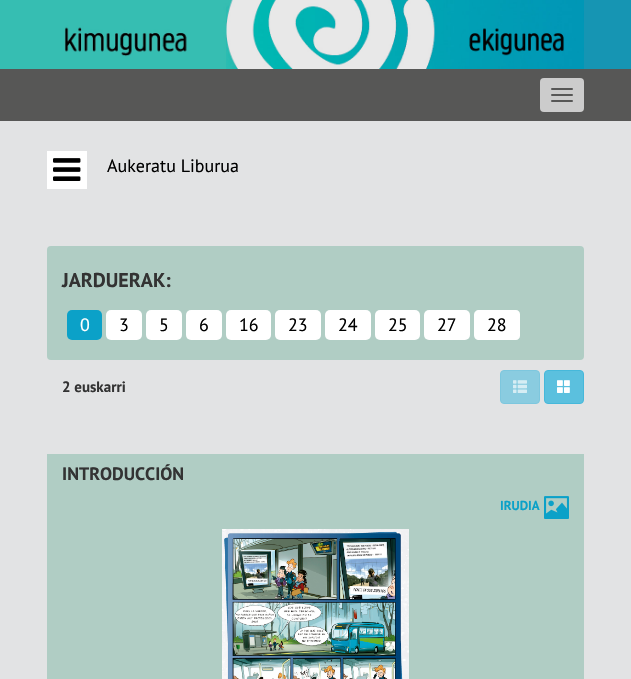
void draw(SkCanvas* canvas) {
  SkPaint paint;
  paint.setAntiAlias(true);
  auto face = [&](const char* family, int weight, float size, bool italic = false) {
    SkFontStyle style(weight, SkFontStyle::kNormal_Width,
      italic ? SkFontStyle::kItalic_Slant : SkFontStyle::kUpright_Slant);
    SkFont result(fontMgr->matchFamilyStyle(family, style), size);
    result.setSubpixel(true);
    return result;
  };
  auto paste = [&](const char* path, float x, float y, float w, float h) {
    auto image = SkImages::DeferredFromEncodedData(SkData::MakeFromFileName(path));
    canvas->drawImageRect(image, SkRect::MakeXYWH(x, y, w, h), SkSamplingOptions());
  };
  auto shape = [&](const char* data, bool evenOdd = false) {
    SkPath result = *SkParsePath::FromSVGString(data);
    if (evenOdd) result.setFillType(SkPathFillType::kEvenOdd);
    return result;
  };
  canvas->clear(0xffe2e3e4);
  {
    const SkColor colors[] = {0xff36beb2, 0xff36beb2, 0xff1695b3, 0xff1695b3};
    const float stops[] = {0, 0.5f, 0.52f, 1};
    const SkPoint ends[] = {{0, 35}, {631, 34}};
    paint.setShader(SkGradientShader::MakeLinear(ends, colors, stops, 4, SkTileMode::kClamp));
    paint.setAlpha(255);
  }
  canvas->drawRect(SkRect::MakeXYWH(0, 0, 631, 69), paint);
  paste("img/1.png", 64, 0, 520, 69);
  paint.setShader(nullptr);
  paint.setColor(0xff575756);
  canvas->drawRect(SkRect::MakeXYWH(0, 69, 631, 52), paint);
  paint.setColor(0xffcccccc);
  canvas->drawRoundRect(SkRect::MakeXYWH(540, 78, 44, 34), 4, 4, paint);
  paint.setColor(0xff575756);
  canvas->drawRoundRect(SkRect::MakeXYWH(551, 88, 22, 2), 1, 1, paint);
  canvas->drawRoundRect(SkRect::MakeXYWH(551, 94, 22, 2), 1, 1, paint);
  canvas->drawRoundRect(SkRect::MakeXYWH(551, 100, 22, 2), 1, 1, paint);
  paint.setColor(0xffffffff);
  canvas->drawRect(SkRect::MakeXYWH(47, 151, 40, 38), paint);
  paste("img/2.png", 53, 158, 28, 23);
  paint.setColor(0xffb0cdc4);
  canvas->drawRoundRect(SkRect::MakeXYWH(47, 246, 537, 114), 4, 4, paint);
  paint.setColor(0xff0ba1c8);
  canvas->drawRoundRect(SkRect::MakeXYWH(67, 310, 35, 30), 5, 5, paint);
  paint.setColor(0xffffffff);
  canvas->drawRoundRect(SkRect::MakeXYWH(106, 310, 36, 30), 5, 5, paint);
  canvas->drawRoundRect(SkRect::MakeXYWH(146, 310, 36, 30), 5, 5, paint);
  canvas->drawRoundRect(SkRect::MakeXYWH(186, 310, 36, 30), 5, 5, paint);
  canvas->drawRoundRect(SkRect::MakeXYWH(226, 310, 45, 30), 5, 5, paint);
  canvas->drawRoundRect(SkRect::MakeXYWH(275, 310, 46, 30), 5, 5, paint);
  canvas->drawRoundRect(SkRect::MakeXYWH(325, 310, 46, 30), 5, 5, paint);
  canvas->drawRoundRect(SkRect::MakeXYWH(375, 310, 45, 30), 5, 5, paint);
  canvas->drawRoundRect(SkRect::MakeXYWH(424, 310, 46, 30), 5, 5, paint);
  canvas->drawPath(shape("M479 310H516C518 310 520 312 520 314V336C520 338 518 340 516 340H479C476 340 474 338 474 335V315C474 312 476 310 479 310Z"), paint);
  paint.setColor(0xff8acce0);
  canvas->drawRoundRect(SkRect::MakeXYWH(500.5f, 370.5f, 39, 33), 3.5f, 3.5f, paint);
  paint.setStroke(true);
  paint.setStrokeWidth(1);
  paint.setColor(0xff7dc7de);
  canvas->drawRoundRect(SkRect::MakeXYWH(500.5f, 370.5f, 39, 33), 3.5f, 3.5f, paint);
  paste("img/3.png", 513, 380, 14, 13);
  paint.setStroke(false);
  paint.setColor(0xff5bc0de);
  canvas->drawRoundRect(SkRect::MakeXYWH(544.5f, 370.5f, 39, 33), 3.5f, 3.5f, paint);
  paint.setStroke(true);
  paint.setColor(0xff46b8da);
  canvas->drawRoundRect(SkRect::MakeXYWH(544.5f, 370.5f, 39, 33), 3.5f, 3.5f, paint);
  paste("img/4.png", 557, 380, 13, 13);
  paint.setStroke(false);
  paint.setColor(0xffb0cdc4);
  canvas->drawRect(SkRect::MakeXYWH(47, 454, 537, 225), paint);
  paste("img/5.png", 544, 496, 25, 23);
  paste("img/6.png", 222, 529, 187, 150);
  auto f0 = face("PT Sans", 400, 18);
  paint.setColor(0xff000000);
  canvas->drawString("Aukeratu Liburua", 107, 172, f0, paint);
  auto f1 = face("PT Sans", 700, 20);
  paint.setColor(0xff333333);
  canvas->drawString("JARDUERAK:", 62, 287, f1, paint);
  paint.setColor(0xffffffff);
  canvas->drawString("0", 80, 331, f0, paint);
  paint.setColor(0xff000000);
  {
    const struct { const char* s; float x, y; } items[] = {
      {"3", 119, 331},
      {"5", 159, 331},
      {"6", 199, 331},
      {"16", 239, 331},
      {"23", 288, 331},
      {"24", 338, 331},
      {"25", 388, 331},
      {"27", 437, 331},
      {"28", 487, 331},
    };
    for (auto [s, x, y] : items) {
      canvas->drawString(s, x, y, f0, paint);
    }
  }
  auto f2 = face("PT Sans", 700, 15);
  paint.setColor(0xff333333);
  canvas->drawString("2 euskarri", 62, 392, f2, paint);
  auto f3 = face("PT Sans", 700, 18);
  canvas->drawString("INTRODUCCIÓN", 62, 480, f3, paint);
  auto f4 = face("PT Sans", 700, 13);
  paint.setColor(0xff0ba1c8);
  canvas->drawString("IRUDIA", 500, 510, f4, paint);
}
